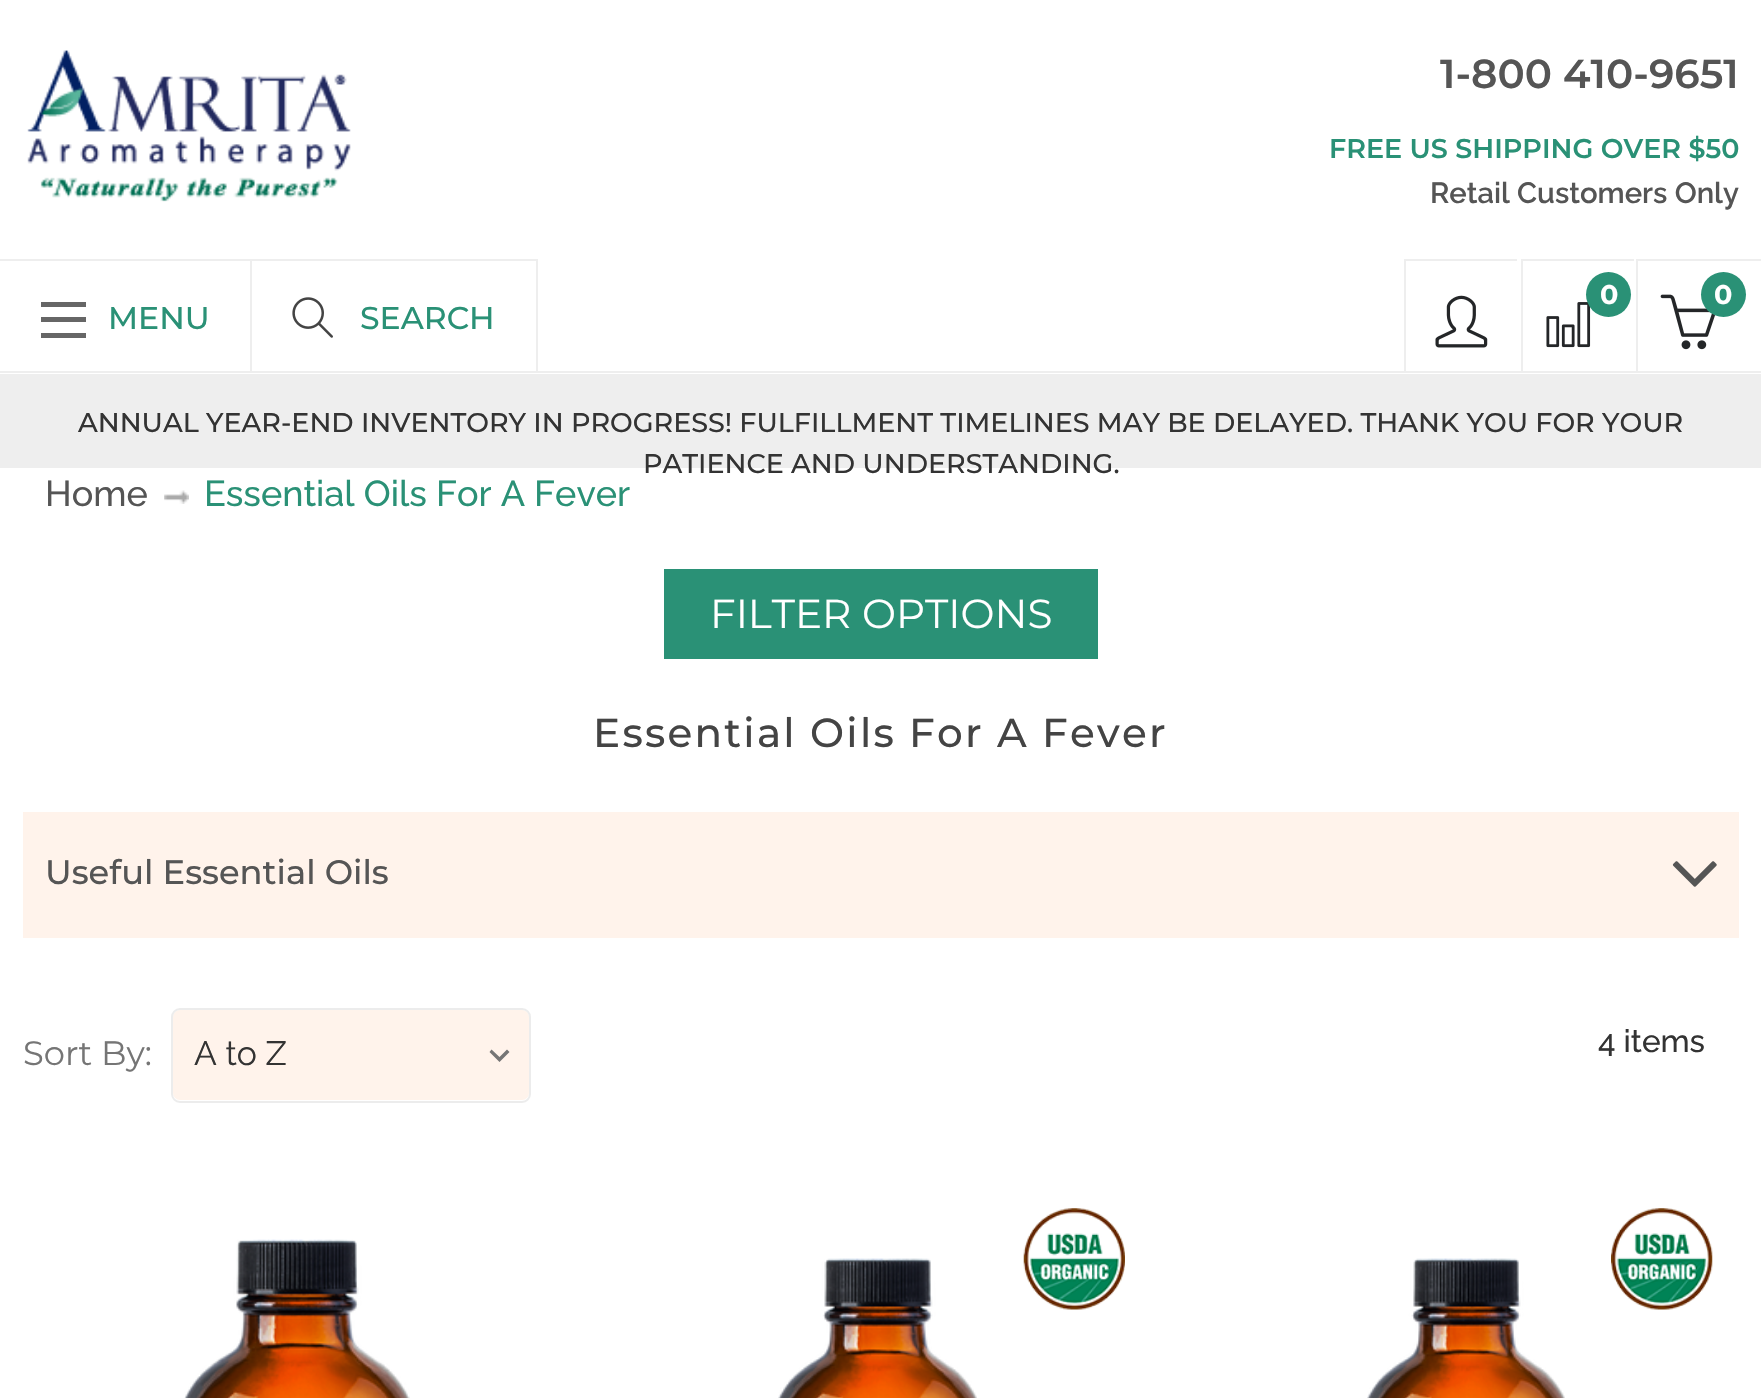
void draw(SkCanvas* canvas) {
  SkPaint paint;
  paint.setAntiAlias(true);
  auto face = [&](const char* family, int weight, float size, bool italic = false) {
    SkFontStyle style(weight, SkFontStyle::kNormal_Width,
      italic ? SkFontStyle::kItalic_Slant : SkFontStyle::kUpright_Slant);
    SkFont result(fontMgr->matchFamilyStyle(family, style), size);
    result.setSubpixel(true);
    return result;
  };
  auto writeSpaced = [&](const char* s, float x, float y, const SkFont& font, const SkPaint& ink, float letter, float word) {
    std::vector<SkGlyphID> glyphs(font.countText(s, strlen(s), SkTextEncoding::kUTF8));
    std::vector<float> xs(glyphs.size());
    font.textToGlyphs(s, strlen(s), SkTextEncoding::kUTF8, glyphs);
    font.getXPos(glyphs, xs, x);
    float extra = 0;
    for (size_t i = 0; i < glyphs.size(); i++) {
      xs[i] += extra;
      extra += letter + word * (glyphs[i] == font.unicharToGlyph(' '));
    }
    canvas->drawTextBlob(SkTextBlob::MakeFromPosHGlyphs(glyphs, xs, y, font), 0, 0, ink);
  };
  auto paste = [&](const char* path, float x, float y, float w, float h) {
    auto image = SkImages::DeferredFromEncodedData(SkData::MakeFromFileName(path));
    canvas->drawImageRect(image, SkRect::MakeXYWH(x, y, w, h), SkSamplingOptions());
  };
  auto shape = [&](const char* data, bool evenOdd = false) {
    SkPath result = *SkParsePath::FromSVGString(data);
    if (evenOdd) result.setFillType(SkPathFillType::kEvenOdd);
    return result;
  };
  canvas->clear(0xffffffff);
  paint.setColor(0xffeeeeee);
  canvas->drawRect(SkRect::MakeXYWH(0, 371, 1761, 2), paint);
  paste("img/1.png", 27, 50, 324, 152);
  canvas->drawRect(SkRect::MakeXYWH(1404, 259, 113, 2), paint);
  canvas->drawRect(SkRect::MakeXYWH(1404, 259, 2, 112), paint);
  paste("img/2.png", 1435, 295, 53, 53);
  canvas->drawRect(SkRect::MakeXYWH(1521, 259, 113, 2), paint);
  canvas->drawRect(SkRect::MakeXYWH(1521, 259, 2, 112), paint);
  paste("img/3.png", 1546, 302, 45, 46);
  paint.setColor(0xff2a9176);
  canvas->drawCircle(1608.5f, 294.5f, 22.5f, paint);
  paint.setColor(0xffeeeeee);
  canvas->drawRect(SkRect::MakeXYWH(1636, 259, 125, 2), paint);
  canvas->drawRect(SkRect::MakeXYWH(1636, 259, 2, 112), paint);
  paste("img/4.png", 1660, 294, 56, 56);
  paint.setColor(0xff2a9176);
  canvas->drawCircle(1723.5f, 294.5f, 22.5f, paint);
  {
    const struct { float x, y, w, h; SkColor color; } items[] = {
      {0, 259, 538, 2, 0xffeeeeee},
      {250, 259, 2, 112, 0xffeeeeee},
      {41, 317, 45, 5, 0xff666666},
      {41, 302, 45, 5, 0xff666666},
      {41, 333, 45, 5, 0xff666666},
      {536, 259, 2, 112, 0xffeeeeee},
    };
    for (auto [x, y, w, h, color] : items) {
      paint.setColor(color);
      canvas->drawRect(SkRect::MakeXYWH(x, y, w, h), paint);
    }
  }
  paste("img/5.png", 292, 297, 41, 41);
  canvas->drawRect(SkRect::MakeXYWH(0, 374, 1761, 94), paint);
  paste("img/6.png", 164, 490, 25, 14);
  paint.setColor(0xff2a9176);
  canvas->drawRect(SkRect::MakeXYWH(664, 569, 434, 90), paint);
  paint.setColor(0xfffff3eb);
  canvas->drawRect(SkRect::MakeXYWH(23, 812, 1716, 126), paint);
  paste("img/7.png", 1672, 861, 45, 26);
  canvas->drawRoundRect(SkRect::MakeXYWH(173, 1010, 356, 90), 7, 7, paint);
  paint.setColor(0xff757575);
  canvas->drawPath(shape("M507 1049.5L499.5 1057L491.5 1049.5L489.5 1052L499.5 1062L509.5 1052Z"), paint);
  paint.setStroke(true);
  paint.setStrokeWidth(2);
  paint.setColor(0xffececec);
  canvas->drawRoundRect(SkRect::MakeXYWH(172, 1009, 358, 93), 8, 8, paint);
  paste("img/8.png", 184, 1239, 226, 159);
  paste("img/9.png", 778, 1258, 199, 140);
  paste("img/10.png", 1023, 1208, 102, 102);
  paste("img/11.png", 1367, 1258, 198, 140);
  paste("img/12.png", 1611, 1208, 102, 102);
  auto f0 = face("Montserrat", 600, 40.5f);
  paint.setStroke(false);
  paint.setColor(0xff555555);
  canvas->drawString("1-800 410-9651", 1440, 88, f0, paint);
  auto f1 = face("Montserrat", 600, 27);
  paint.setColor(0xff2a9176);
  canvas->drawString("FREE US SHIPPING OVER $50", 1329, 158, f1, paint);
  auto f2 = face("Raleway", 600, 29.25f);
  paint.setColor(0xff555555);
  canvas->drawString("Retail Customers Only", 1430, 203, f2, paint);
  auto f3 = face("Montserrat", 700, 27);
  paint.setColor(0xffffffff);
  canvas->drawString("0", 1600, 304, f3, paint);
  canvas->drawString("0", 1714, 304, f3, paint);
  auto f4 = face("Montserrat", 500, 31.5f);
  paint.setColor(0xff2a9176);
  canvas->drawString("MENU", 108, 329, f4, paint);
  canvas->drawString("SEARCH", 360, 329, f4, paint);
  auto f5 = face("Montserrat", 500, 27);
  paint.setColor(0xff333333);
  canvas->drawString("ANNUAL YEAR-END INVENTORY IN PROGRESS! FULFILLMENT TIMELINES MAY BE DELAYED. THANK YOU FOR YOUR", 78, 432, f5, paint);
  canvas->drawString("PATIENCE AND UNDERSTANDING.", 643, 473, f5, paint);
  auto f6 = face("Raleway", 500, 36);
  paint.setColor(0xff555555);
  canvas->drawString("Home", 45, 506, f6, paint);
  paint.setColor(0xff2a9176);
  canvas->drawString("Essential Oils For A Fever", 204, 506, f6, paint);
  auto f7 = face("Montserrat", 100, 40.5f);
  paint.setColor(0xffffffff);
  canvas->drawString("FILTER OPTIONS", 710, 628, f7, paint);
  auto f8 = face("Montserrat", 500, 40.5f);
  paint.setColor(0xff444444);
  writeSpaced("Essential Oils For A Fever", 593, 747, f8, paint, 2.25f, 0);
  auto f9 = face("Montserrat", 500, 33.75f);
  paint.setColor(0xff555555);
  canvas->drawString("Useful Essential Oils", 45, 884, f9, paint);
  auto f10 = face("Montserrat", 100, 33.75f);
  paint.setColor(0xff757575);
  canvas->drawString("Sort By:", 23, 1065, f10, paint);
  auto f11 = face("Raleway", 400, 33.75f);
  paint.setColor(0xff333333);
  canvas->drawString("A to Z", 194, 1065, f11, paint);
  auto f12 = face("Raleway", 500, 31.5f);
  canvas->drawString("4 items", 1598, 1052, f12, paint);
}
